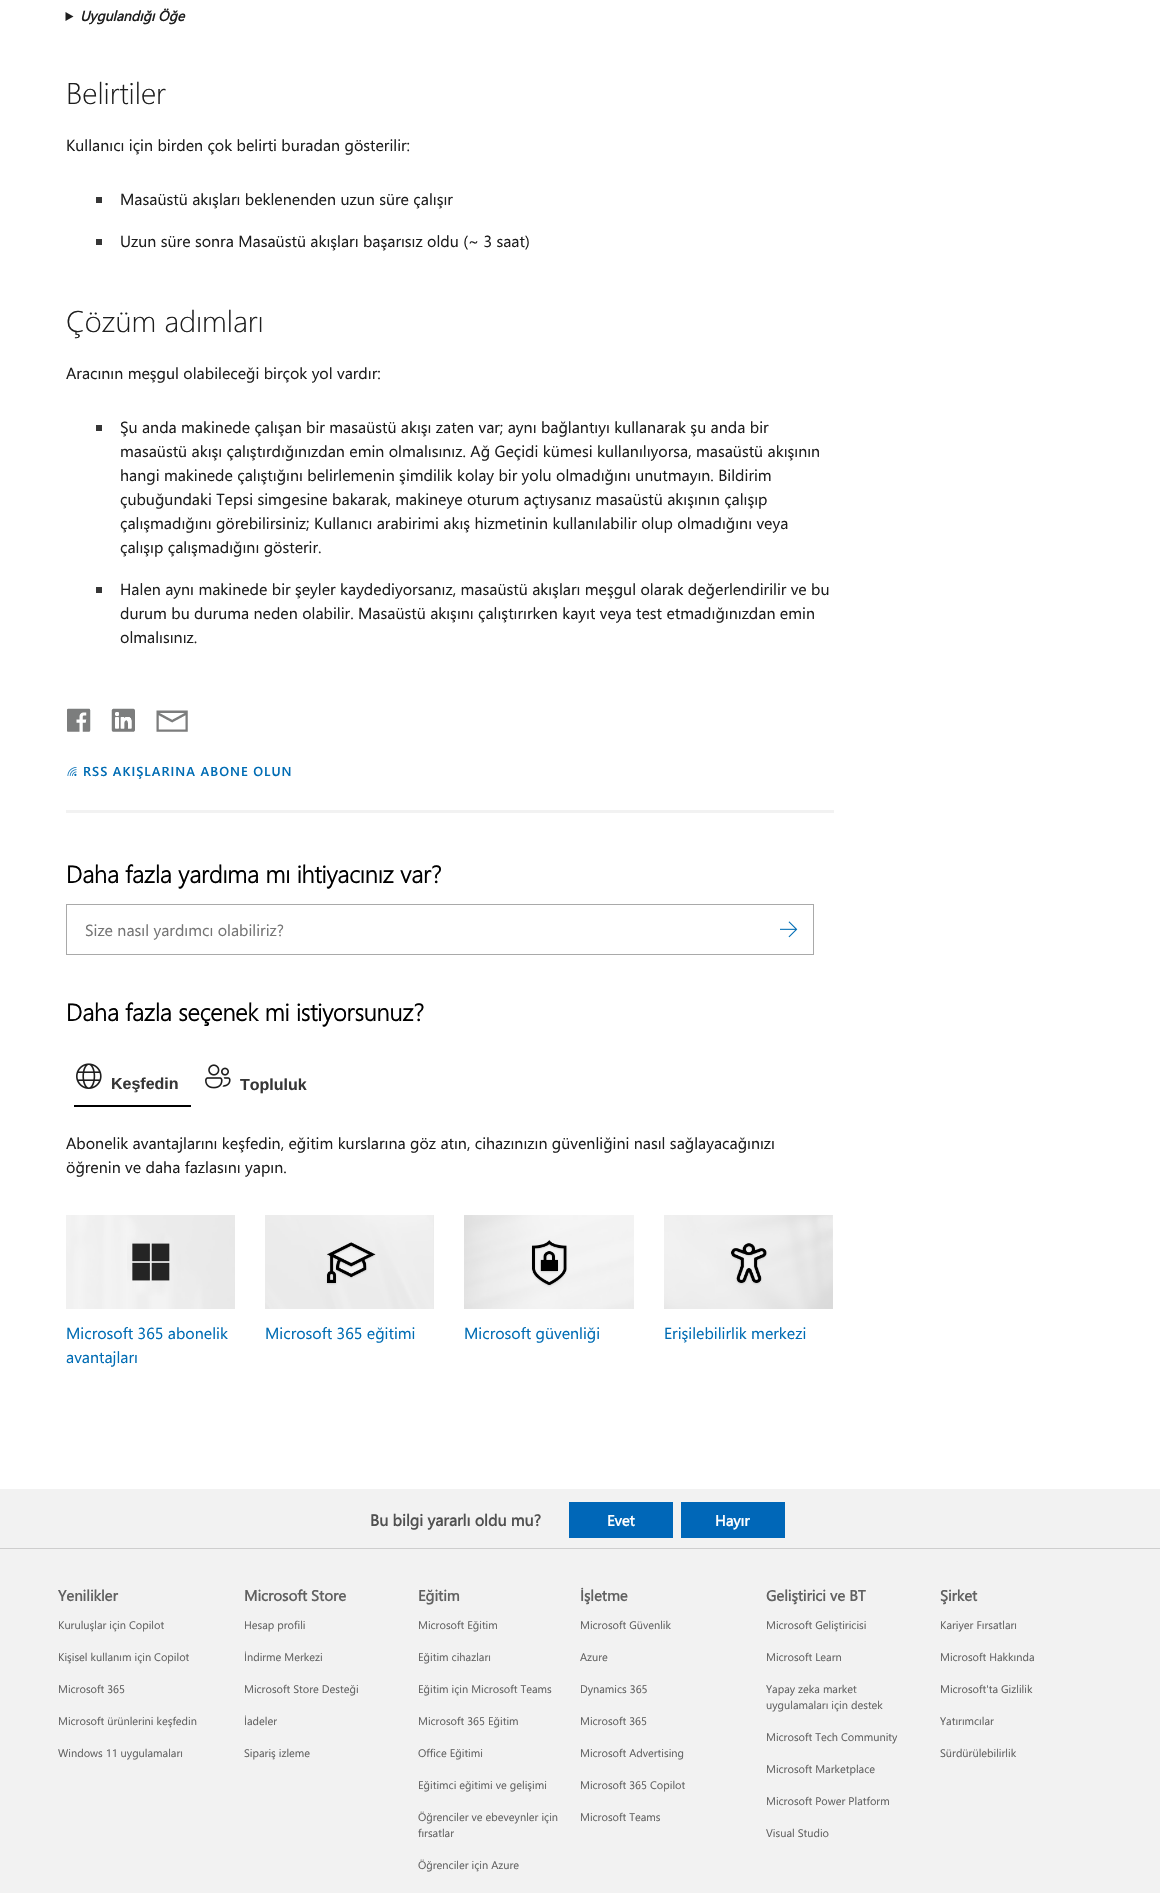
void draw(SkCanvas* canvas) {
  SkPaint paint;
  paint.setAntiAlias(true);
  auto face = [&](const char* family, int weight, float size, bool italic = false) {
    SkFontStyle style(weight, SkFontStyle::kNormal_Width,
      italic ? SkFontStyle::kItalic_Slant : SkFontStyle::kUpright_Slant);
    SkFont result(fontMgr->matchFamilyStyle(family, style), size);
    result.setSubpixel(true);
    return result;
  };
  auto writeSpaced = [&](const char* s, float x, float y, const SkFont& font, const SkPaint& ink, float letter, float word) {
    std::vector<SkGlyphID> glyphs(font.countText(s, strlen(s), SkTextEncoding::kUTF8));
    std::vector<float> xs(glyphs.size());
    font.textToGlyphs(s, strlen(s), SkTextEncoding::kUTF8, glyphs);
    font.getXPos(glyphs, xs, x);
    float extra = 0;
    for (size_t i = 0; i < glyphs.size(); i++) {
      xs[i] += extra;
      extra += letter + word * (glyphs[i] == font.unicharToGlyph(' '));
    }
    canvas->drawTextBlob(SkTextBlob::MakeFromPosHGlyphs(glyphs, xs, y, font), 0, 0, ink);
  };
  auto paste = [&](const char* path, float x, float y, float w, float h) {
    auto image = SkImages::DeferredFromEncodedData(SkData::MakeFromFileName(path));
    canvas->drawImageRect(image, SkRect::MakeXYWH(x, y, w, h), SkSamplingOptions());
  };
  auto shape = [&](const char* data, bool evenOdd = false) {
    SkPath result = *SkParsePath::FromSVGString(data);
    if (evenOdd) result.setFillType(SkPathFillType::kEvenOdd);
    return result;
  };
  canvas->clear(0xffffffff);
  paint.setColor(0xff1e1e1e);
  canvas->drawPath(shape("M65.5 12L73.5 16.5L65.5 21Z"), paint);
  {
    const struct { float x, y, w, h; SkColor color; } items[] = {
      {96, 197, 6, 6, 0xff363636},
      {96, 239, 6, 6, 0xff363636},
      {96, 425, 6, 6, 0xff363636},
      {96, 587, 6, 6, 0xff363636},
    };
    for (auto [x, y, w, h, color] : items) {
      paint.setColor(color);
      canvas->drawRect(SkRect::MakeXYWH(x, y, w, h), paint);
    }
  }
  paste("img/1.png", 67, 708, 24, 24);
  paste("img/2.png", 111, 708, 24, 24);
  paste("img/3.png", 156, 710, 32, 22);
  paste("img/4.png", 67, 767, 10, 9);
  paint.setColor(0xfff2f2f2);
  canvas->drawRect(SkRect::MakeXYWH(66, 810, 768, 3), paint);
  paint.setStroke(true);
  paint.setStrokeWidth(1);
  paint.setColor(0xffa9a9a9);
  canvas->drawRect(SkRect::MakeXYWH(66.5f, 904.5f, 747, 50), paint);
  paste("img/5.png", 780, 921, 18, 17);
  paint.setStroke(false);
  paint.setColor(0xff000000);
  canvas->drawRect(SkRect::MakeXYWH(74, 1105, 117, 2), paint);
  paste("img/6.png", 76, 1063, 26, 26);
  paste("img/7.png", 205, 1064, 26, 25);
  paste("img/8.png", 66, 1215, 169, 94);
  paste("img/9.png", 265, 1215, 169, 94);
  paste("img/10.png", 464, 1215, 170, 94);
  paste("img/11.png", 664, 1215, 169, 94);
  {
    const struct { float x, y, w, h; SkColor color; } items[] = {
      {0, 1489, 1160, 59, 0xfff2f2f2},
      {0, 1548, 1160, 1, 0xffcecece},
      {569, 1502, 104, 36, 0xff0067b8},
      {681, 1502, 104, 36, 0xff0067b8},
      {0, 1549, 1160, 344, 0xfff2f2f2},
    };
    for (auto [x, y, w, h, color] : items) {
      paint.setColor(color);
      canvas->drawRect(SkRect::MakeXYWH(x, y, w, h), paint);
    }
  }
  auto f0 = face("Segoe UI", 700, 14, true);
  paint.setColor(0xff1e1e1e);
  canvas->drawString("Uygulandığı Öğe", 80, 21, f0, paint);
  auto f1 = face("Segoe UI", 300, 30);
  canvas->drawString("Belirtiler", 66, 104, f1, paint);
  auto f2 = face("Segoe UI", 400, 16);
  {
    const struct { const char* s; float x, y; } items[] = {
      {"Kullanıcı için birden çok belirti buradan gösterilir:", 66, 151},
      {"Masaüstü akışları beklenenden uzun süre çalışır", 120, 205},
      {"Uzun süre sonra Masaüstü akışları başarısız oldu (~ 3 saat)", 120, 247},
    };
    for (auto [s, x, y] : items) {
      canvas->drawString(s, x, y, f2, paint);
    }
  }
  canvas->drawString("Çözüm adımları", 66, 332, f1, paint);
  {
    const struct { const char* s; float x, y; } items[] = {
      {"Aracının meşgul olabileceği birçok yol vardır:", 66, 379},
      {"Şu anda makinede çalışan bir masaüstü akışı zaten var; aynı bağlantıyı kullanarak şu anda bir", 120, 433},
      {"masaüstü akışı çalıştırdığınızdan emin olmalısınız. Ağ Geçidi kümesi kullanılıyorsa, masaüstü akışının", 120, 457},
      {"hangi makinede çalıştığını belirlemenin şimdilik kolay bir yolu olmadığını unutmayın. Bildirim", 120, 481},
      {"çubuğundaki Tepsi simgesine bakarak, makineye oturum açtıysanız masaüstü akışının çalışıp", 120, 505},
      {"çalışmadığını görebilirsiniz; Kullanıcı arabirimi akış hizmetinin kullanılabilir olup olmadığını veya", 120, 529},
      {"çalışıp çalışmadığını gösterir.", 120, 553},
      {"Halen aynı makinede bir şeyler kaydediyorsanız, masaüstü akışları meşgul olarak değerlendirilir ve bu", 120, 595},
      {"durum bu duruma neden olabilir. Masaüstü akışını çalıştırırken kayıt veya test etmadığınızdan emin", 120, 619},
      {"olmalısınız.", 120, 643},
    };
    for (auto [s, x, y] : items) {
      canvas->drawString(s, x, y, f2, paint);
    }
  }
  auto f3 = face("Segoe UI", 600, 13);
  paint.setColor(0xff006cb4);
  writeSpaced("RSS AKIŞLARINA ABONE OLUN", 83, 776, f3, paint, 1, 0);
  auto f4 = face("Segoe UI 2", 700, 24);
  paint.setColor(0xff000000);
  canvas->drawString("Daha fazla yardıma mı ihtiyacınız var?", 66, 883, f4, paint);
  paint.setColor(0xff757575);
  canvas->drawString("Size nasıl yardımcı olabiliriz?", 85, 936, f2, paint);
  paint.setColor(0xff000000);
  canvas->drawString("Daha fazla seçenek mi istiyorsunuz?", 66, 1021, f4, paint);
  auto f5 = face("Liberation Sans", 700, 16);
  paint.setColor(0xff363636);
  canvas->drawString("Keşfedin", 111, 1089, f5, paint);
  canvas->drawString("Topluluk", 240, 1090, f5, paint);
  paint.setColor(0xff1e1e1e);
  canvas->drawString("Abonelik avantajlarını keşfedin, eğitim kurslarına göz atın, cihazınızın güvenliğini nasıl sağlayacağınızı", 66, 1149, f2, paint);
  canvas->drawString("öğrenin ve daha fazlasını yapın.", 66, 1173, f2, paint);
  paint.setColor(0xff006cb4);
  {
    const struct { const char* s; float x, y; } items[] = {
      {"Microsoft 365 abonelik", 66, 1339},
      {"avantajları", 66, 1363},
      {"Microsoft 365 eğitimi", 265, 1339},
      {"Microsoft güvenliği", 464, 1339},
      {"Erişilebilirlik merkezi", 664, 1339},
    };
    for (auto [s, x, y] : items) {
      canvas->drawString(s, x, y, f2, paint);
    }
  }
  auto f6 = face("Segoe UI", 700, 16);
  paint.setColor(0xff505050);
  canvas->drawString("Bu bilgi yararlı oldu mu?", 370, 1526, f6, paint);
  auto f7 = face("Segoe UI", 700, 15);
  paint.setColor(0xffffffff);
  canvas->drawString("Evet", 607, 1526, f7, paint);
  canvas->drawString("Hayır", 715, 1526, f7, paint);
  paint.setColor(0xff616161);
  canvas->drawString("Yenilikler", 58, 1601, f7, paint);
  auto f8 = face("Segoe UI", 400, 11);
  {
    const struct { const char* s; float x, y; } items[] = {
      {"Kuruluşlar için Copilot", 58, 1629},
      {"Kişisel kullanım için Copilot", 58, 1661},
      {"Microsoft 365", 58, 1693},
      {"Microsoft ürünlerini keşfedin", 58, 1725},
      {"Windows 11 uygulamaları", 58, 1757},
    };
    for (auto [s, x, y] : items) {
      canvas->drawString(s, x, y, f8, paint);
    }
  }
  canvas->drawString("Microsoft Store", 244, 1601, f7, paint);
  {
    const struct { const char* s; float x, y; } items[] = {
      {"Hesap profili", 244, 1629},
      {"İndirme Merkezi", 244, 1661},
      {"Microsoft Store Desteği", 244, 1693},
      {"İadeler", 244, 1725},
      {"Sipariş izleme", 244, 1757},
    };
    for (auto [s, x, y] : items) {
      canvas->drawString(s, x, y, f8, paint);
    }
  }
  canvas->drawString("Eğitim", 418, 1601, f7, paint);
  {
    const struct { const char* s; float x, y; } items[] = {
      {"Microsoft Eğitim", 418, 1629},
      {"Eğitim cihazları", 418, 1661},
      {"Eğitim için Microsoft Teams", 418, 1693},
      {"Microsoft 365 Eğitim", 418, 1725},
      {"Office Eğitimi", 418, 1757},
      {"Eğitimci eğitimi ve gelişimi", 418, 1789},
      {"Öğrenciler ve ebeveynler için", 418, 1821},
      {"fırsatlar", 418, 1837},
      {"Öğrenciler için Azure", 418, 1869},
    };
    for (auto [s, x, y] : items) {
      canvas->drawString(s, x, y, f8, paint);
    }
  }
  canvas->drawString("İşletme", 580, 1601, f7, paint);
  {
    const struct { const char* s; float x, y; } items[] = {
      {"Microsoft Güvenlik", 580, 1629},
      {"Azure", 580, 1661},
      {"Dynamics 365", 580, 1693},
      {"Microsoft 365", 580, 1725},
      {"Microsoft Advertising", 580, 1757},
      {"Microsoft 365 Copilot", 580, 1789},
      {"Microsoft Teams", 580, 1821},
    };
    for (auto [s, x, y] : items) {
      canvas->drawString(s, x, y, f8, paint);
    }
  }
  canvas->drawString("Geliştirici ve BT", 766, 1601, f7, paint);
  {
    const struct { const char* s; float x, y; } items[] = {
      {"Microsoft Geliştiricisi", 766, 1629},
      {"Microsoft Learn", 766, 1661},
      {"Yapay zeka market", 766, 1693},
      {"uygulamaları için destek", 766, 1709},
      {"Microsoft Tech Community", 766, 1741},
      {"Microsoft Marketplace", 766, 1773},
      {"Microsoft Power Platform", 766, 1805},
      {"Visual Studio", 766, 1837},
    };
    for (auto [s, x, y] : items) {
      canvas->drawString(s, x, y, f8, paint);
    }
  }
  canvas->drawString("Şirket", 940, 1601, f7, paint);
  {
    const struct { const char* s; float x, y; } items[] = {
      {"Kariyer Fırsatları", 940, 1629},
      {"Microsoft Hakkında", 940, 1661},
      {"Microsoft'ta Gizlilik", 940, 1693},
      {"Yatırımcılar", 940, 1725},
      {"Sürdürülebilirlik", 940, 1757},
    };
    for (auto [s, x, y] : items) {
      canvas->drawString(s, x, y, f8, paint);
    }
  }
}
